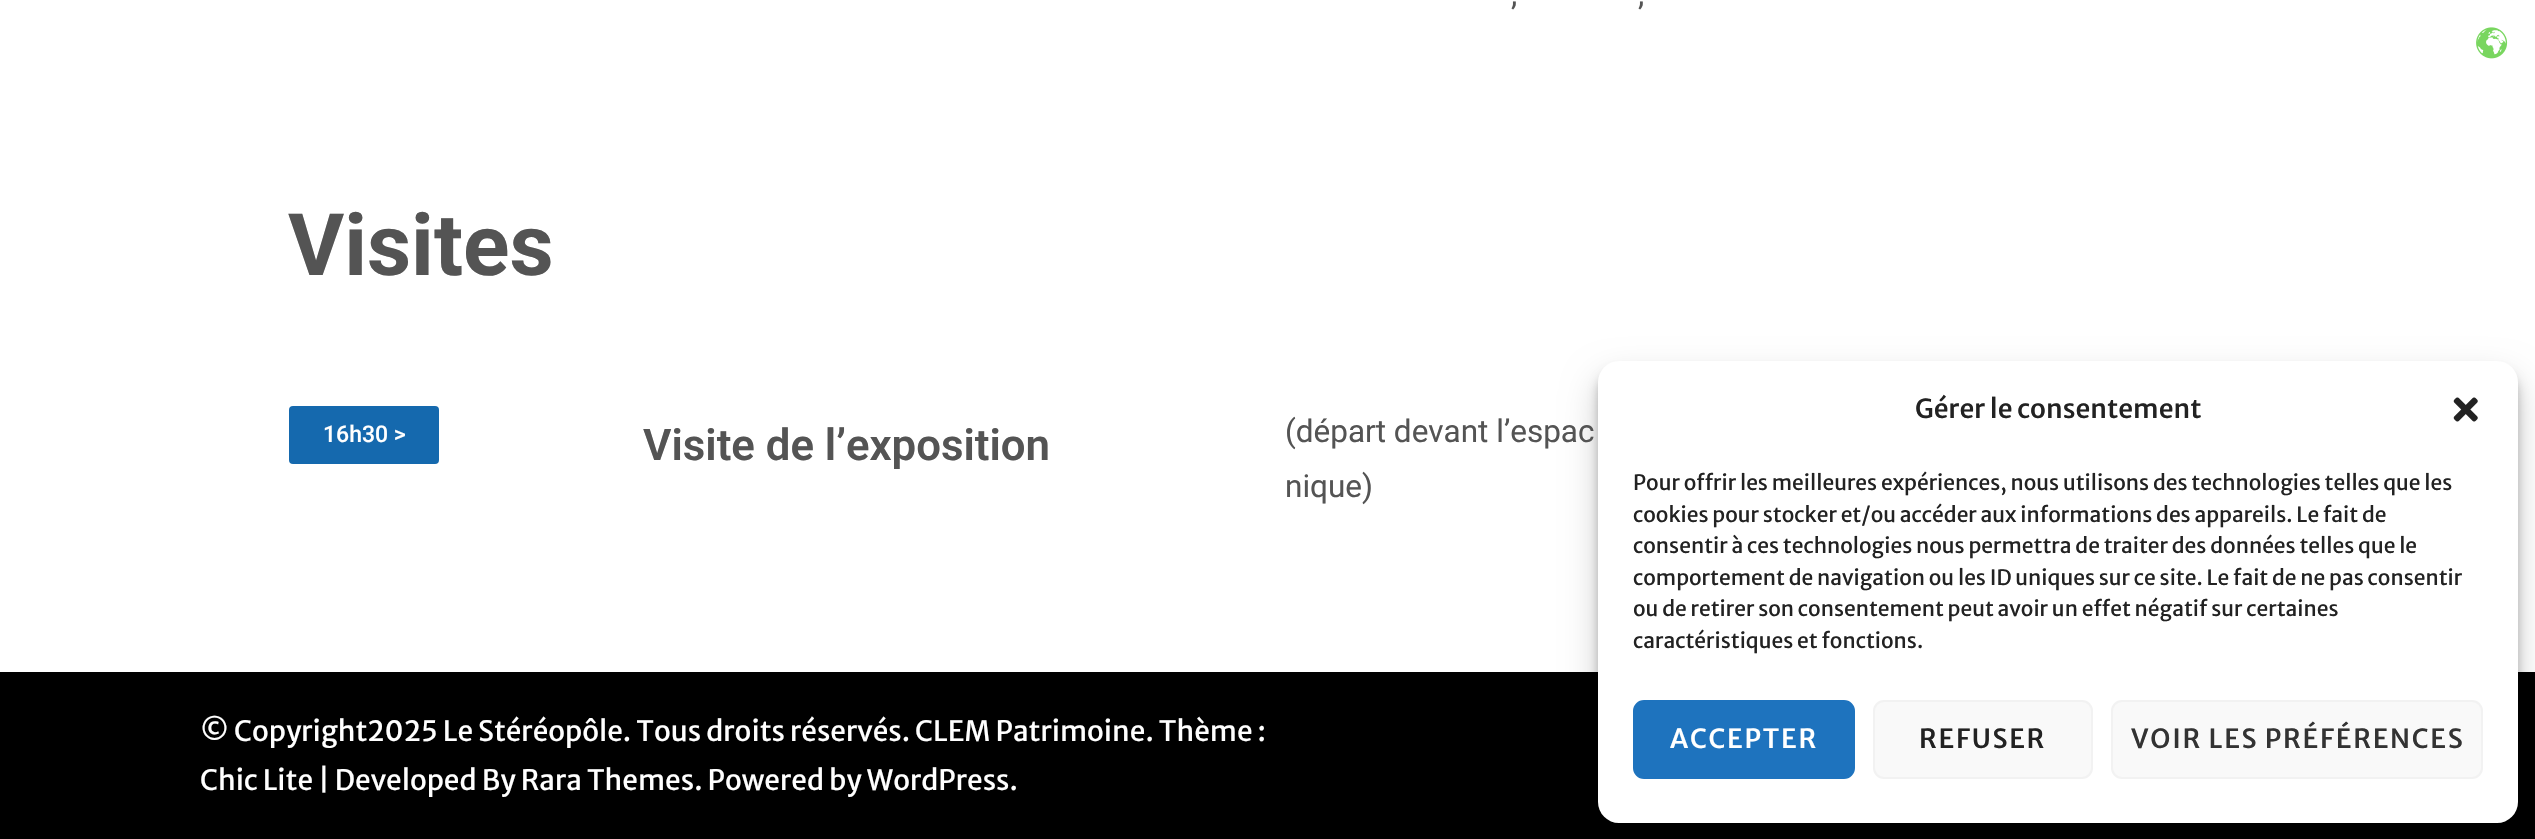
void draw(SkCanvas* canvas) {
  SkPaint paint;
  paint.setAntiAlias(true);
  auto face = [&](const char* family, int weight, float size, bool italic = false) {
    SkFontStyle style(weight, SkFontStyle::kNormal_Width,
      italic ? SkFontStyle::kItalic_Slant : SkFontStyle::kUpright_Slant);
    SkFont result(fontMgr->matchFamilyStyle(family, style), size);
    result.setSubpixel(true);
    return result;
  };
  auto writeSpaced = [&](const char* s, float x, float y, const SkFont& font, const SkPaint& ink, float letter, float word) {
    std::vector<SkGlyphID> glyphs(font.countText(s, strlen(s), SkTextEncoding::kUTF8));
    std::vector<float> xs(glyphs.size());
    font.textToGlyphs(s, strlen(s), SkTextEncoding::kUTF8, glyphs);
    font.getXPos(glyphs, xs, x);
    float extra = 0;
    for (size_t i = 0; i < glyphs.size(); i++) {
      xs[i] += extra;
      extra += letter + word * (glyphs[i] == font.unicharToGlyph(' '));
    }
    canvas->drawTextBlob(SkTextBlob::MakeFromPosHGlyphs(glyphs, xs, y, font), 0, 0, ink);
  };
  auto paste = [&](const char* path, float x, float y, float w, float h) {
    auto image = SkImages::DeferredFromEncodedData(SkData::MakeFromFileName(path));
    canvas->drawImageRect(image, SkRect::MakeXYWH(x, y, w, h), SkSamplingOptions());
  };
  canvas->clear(0xffffffff);
  paint.setColor(0xff1569ae);
  canvas->drawRoundRect(SkRect::MakeXYWH(289, 406, 150, 58), 4, 4, paint);
  paint.setColor(0xff000000);
  canvas->drawRect(SkRect::MakeXYWH(0, 672, 2535, 167), paint);
  paste("img/1.png", 2476, 27, 32, 32);
  paint.setColor(0x3b000000);
  paint.setMaskFilter(SkMaskFilter::MakeBlur(kNormal_SkBlurStyle, 5));
  canvas->drawRoundRect(SkRect::MakeXYWH(1598, 371, 920, 462), 21, 21, paint);
  paint.setMaskFilter(nullptr);
  paint.setColor(0x30000000);
  paint.setMaskFilter(SkMaskFilter::MakeBlur(kNormal_SkBlurStyle, 17.5f));
  canvas->drawRoundRect(SkRect::MakeXYWH(1598, 378, 920, 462), 21, 21, paint);
  paint.setMaskFilter(nullptr);
  paint.setColor(0xffffffff);
  canvas->drawRoundRect(SkRect::MakeXYWH(1598, 361, 920, 462), 21, 21, paint);
  paste("img/2.png", 2453, 397, 25, 25);
  paint.setColor(0xff1e73be);
  canvas->drawRoundRect(SkRect::MakeXYWH(1634, 701, 220, 77), 10, 10, paint);
  paint.setStroke(true);
  paint.setStrokeWidth(2);
  canvas->drawRoundRect(SkRect::MakeXYWH(1634, 701, 220, 77), 10, 10, paint);
  paint.setStroke(false);
  paint.setColor(0xfff9f9f9);
  canvas->drawRoundRect(SkRect::MakeXYWH(1874, 701, 218, 77), 10, 10, paint);
  paint.setStroke(true);
  paint.setColor(0xfff2f2f2);
  canvas->drawRoundRect(SkRect::MakeXYWH(1874, 701, 218, 77), 10, 10, paint);
  paint.setStroke(false);
  paint.setColor(0xfff9f9f9);
  canvas->drawRoundRect(SkRect::MakeXYWH(2112, 701, 370, 77), 10, 10, paint);
  paint.setStroke(true);
  paint.setColor(0xfff2f2f2);
  canvas->drawRoundRect(SkRect::MakeXYWH(2112, 701, 370, 77), 10, 10, paint);
  auto f0 = face("Roboto", 400, 31.5f);
  paint.setStroke(false);
  paint.setColor(0xff545454);
  canvas->drawString(",", 1511, 5, f0, paint);
  canvas->drawString(",", 1638, 5, f0, paint);
  auto f1 = face("Roboto", 700, 86);
  canvas->drawString("Visites", 288, 275, f1, paint);
  auto f2 = face("Roboto", 500, 23);
  paint.setColor(0xffffffff);
  canvas->drawString("16h30 >", 323, 442, f2, paint);
  auto f3 = face("Roboto", 600, 43.75f);
  paint.setColor(0xff545454);
  canvas->drawString("Visite de l’exposition", 643, 460, f3, paint);
  canvas->drawString("(départ devant l’espac", 1285, 442, f0, paint);
  canvas->drawString("nique)", 1285, 497, f0, paint);
  auto f4 = face("Merriweather Sans", 400, 28);
  paint.setColor(0xffffffff);
  canvas->drawString("© Copyright2025 Le Stéréopôle. Tous droits réservés. CLEM Patrimoine. Thème :", 200, 741, f4, paint);
  canvas->drawString("Chic Lite | Developed By Rara Themes. Powered by WordPress.", 200, 790, f4, paint);
  auto f5 = face("Merriweather Sans", 500, 26.25f);
  paint.setColor(0xff222222);
  canvas->drawString("Gérer le consentement", 1915, 418, f5, paint);
  auto f6 = face("Merriweather Sans", 400, 21);
  {
    const struct { const char* s; float x, y; } items[] = {
      {"Pour offrir les meilleures expériences, nous utilisons des technologies telles que les", 1633, 490},
      {"cookies pour stocker et/ou accéder aux informations des appareils. Le fait de", 1633, 522},
      {"consentir à ces technologies nous permettra de traiter des données telles que le", 1633, 553},
      {"comportement de navigation ou les ID uniques sur ce site. Le fait de ne pas consentir", 1633, 585},
      {"ou de retirer son consentement peut avoir un effet négatif sur certaines", 1633, 616},
      {"caractéristiques et fonctions.", 1633, 648},
    };
    for (auto [s, x, y] : items) {
      canvas->drawString(s, x, y, f6, paint);
    }
  }
  paint.setColor(0xffffffff);
  writeSpaced("ACCEPTER", 1670, 748, f5, paint, 1.75f, 0);
  paint.setColor(0xff222222);
  writeSpaced("REFUSER", 1919, 748, f5, paint, 1.75f, 0);
  paint.setColor(0xff333333);
  writeSpaced("VOIR LES PRÉFÉRENCES", 2131, 748, f5, paint, 1.75f, 0);
}
